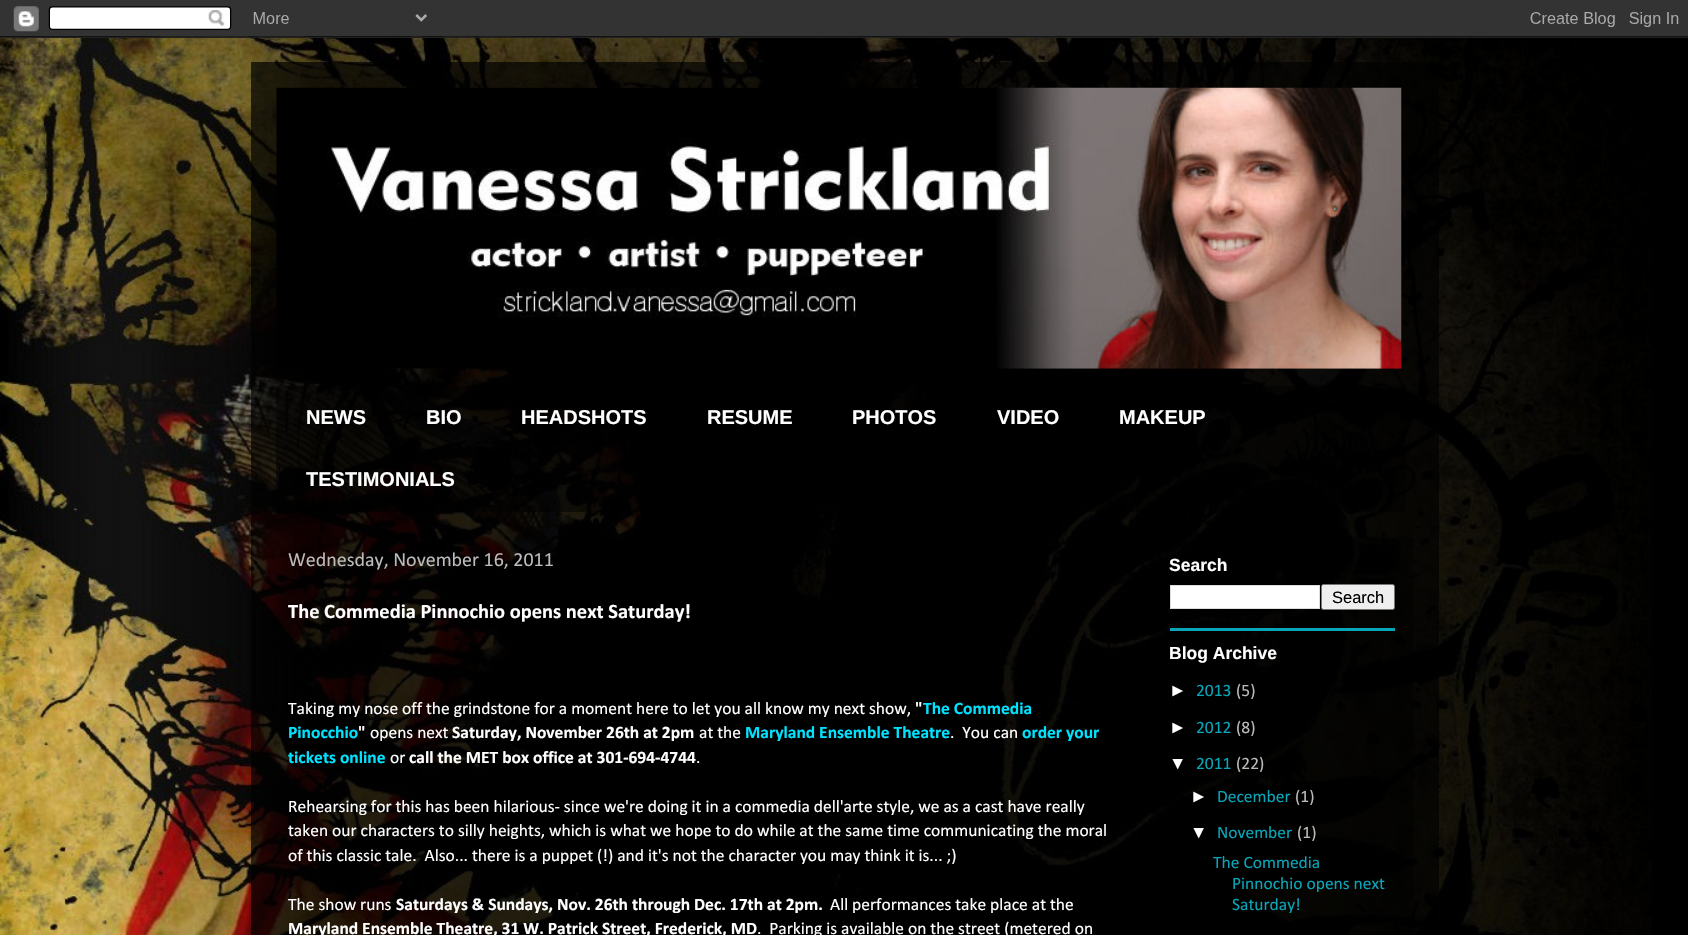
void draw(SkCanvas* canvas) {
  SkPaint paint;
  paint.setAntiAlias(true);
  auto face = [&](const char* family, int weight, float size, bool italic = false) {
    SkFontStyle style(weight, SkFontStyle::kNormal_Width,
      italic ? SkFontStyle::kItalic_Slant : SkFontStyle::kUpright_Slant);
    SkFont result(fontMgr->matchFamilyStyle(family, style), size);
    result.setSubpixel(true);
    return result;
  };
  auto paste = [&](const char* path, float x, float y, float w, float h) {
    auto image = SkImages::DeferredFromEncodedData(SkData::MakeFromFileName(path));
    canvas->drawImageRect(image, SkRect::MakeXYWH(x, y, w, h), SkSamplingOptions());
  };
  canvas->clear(0xff000000);
  paste("img/1.png", 0, 36, 1652, 899);
  paste("img/2.png", 0, 0, 1688, 38);
  paint.setColor(0xb3000000);
  canvas->drawRect(SkRect::MakeXYWH(251, 62, 1188, 873), paint);
  paste("img/3.png", 276, 87, 1126, 282);
  {
    const struct { float x, y, w, h; SkColor color; } items[] = {
      {276, 386, 1130, 126, 0x80000000},
      {1151, 537, 262, 396, 0x80000000},
      {1170, 628, 225, 3, 0xff09a5b8},
    };
    for (auto [x, y, w, h, color] : items) {
      paint.setColor(color);
      canvas->drawRect(SkRect::MakeXYWH(x, y, w, h), paint);
    }
  }
  paint.setColor(0xffffffff);
  canvas->drawRect(SkRect::MakeXYWH(1170.5f, 585.5f, 149, 23), paint);
  paint.setStroke(true);
  paint.setStrokeWidth(1);
  paint.setColor(0xffdddddd);
  canvas->drawRect(SkRect::MakeXYWH(1170.5f, 585.5f, 149, 23), paint);
  paint.setStroke(false);
  paint.setColor(0xffefefef);
  canvas->drawRoundRect(SkRect::MakeXYWH(1321.5f, 584.5f, 73, 25), 2, 2, paint);
  paint.setStroke(true);
  paint.setColor(0xff767676);
  canvas->drawRoundRect(SkRect::MakeXYWH(1321.5f, 584.5f, 73, 25), 2, 2, paint);
  auto f0 = face("Liberation Sans", 700, 20);
  paint.setStroke(false);
  paint.setColor(0xffffffff);
  {
    const struct { const char* s; float x, y; } items[] = {
      {"NEWS", 306, 424},
      {"BIO", 426, 424},
      {"HEADSHOTS", 521, 424},
      {"RESUME", 707, 424},
      {"PHOTOS", 852, 424},
      {"VIDEO", 997, 424},
      {"MAKEUP", 1119, 424},
      {"TESTIMONIALS", 306, 486},
    };
    for (auto [s, x, y] : items) {
      canvas->drawString(s, x, y, f0, paint);
    }
  }
  auto f1 = face("Calibri", 400, 20);
  paint.setColor(0xffbbbbbb);
  canvas->drawString("Wednesday, November 16, 2011", 288, 566, f1, paint);
  auto f2 = face("Calibri", 700, 20.5f);
  paint.setColor(0xffffffff);
  canvas->drawString("The Commedia Pinnochio opens next Saturday!", 288, 618, f2, paint);
  auto f3 = face("Calibri", 400, 17.5f);
  canvas->drawString("Taking my nose off the grindstone for a moment here to let you all know my next show,", 288, 714, f3, paint);
  auto f4 = face("Calibri", 700, 17.5f);
  canvas->drawString("\"", 915, 714, f4, paint);
  paint.setColor(0xff00e3ff);
  canvas->drawString("The Commedia", 923, 714, f4, paint);
  canvas->drawString("Pinocchio", 288, 738, f4, paint);
  paint.setColor(0xffffffff);
  canvas->drawString("\"", 358, 738, f4, paint);
  canvas->drawString("opens next", 370, 738, f3, paint);
  canvas->drawString("Saturday, November 26th at 2pm", 452, 738, f4, paint);
  canvas->drawString("at the", 699, 738, f3, paint);
  paint.setColor(0xff00e3ff);
  canvas->drawString("Maryland Ensemble Theatre", 745, 738, f4, paint);
  paint.setColor(0xffffffff);
  canvas->drawString(".  You can", 950, 738, f3, paint);
  paint.setColor(0xff00e3ff);
  canvas->drawString("order your", 1022, 738, f4, paint);
  canvas->drawString("tickets online", 288, 763, f4, paint);
  paint.setColor(0xffffffff);
  canvas->drawString("or", 390, 763, f3, paint);
  canvas->drawString("call the MET box office at 301-694-4744", 409, 763, f4, paint);
  {
    const struct { const char* s; float x, y; } items[] = {
      {".", 696, 763},
      {"Rehearsing for this has been hilarious- since we're doing it in a commedia dell'arte style, we as a cast have really", 288, 812},
      {"taken our characters to silly heights, which is what we hope to do while at the same time communicating the moral", 288, 836},
      {"of this classic tale.  Also... there is a puppet (!) and it's not the character you may think it is... ;)", 288, 861},
      {"The show runs", 288, 910},
    };
    for (auto [s, x, y] : items) {
      canvas->drawString(s, x, y, f3, paint);
    }
  }
  canvas->drawString("Saturdays & Sundays, Nov. 26th through Dec. 17th at 2pm.", 396, 910, f4, paint);
  canvas->drawString("All performances take place at the", 830, 910, f3, paint);
  canvas->drawString("Maryland Ensemble Theatre, 31 W. Patrick Street, Frederick, MD", 288, 934, f4, paint);
  canvas->drawString(".  Parking is available on the street (metered on", 757, 934, f3, paint);
  auto f5 = face("Liberation Sans", 700, 17.5f);
  canvas->drawString("Search", 1169, 571, f5, paint);
  auto f6 = face("Liberation Sans", 400, 16.5f);
  paint.setColor(0xff000000);
  canvas->drawString("Search", 1332, 603, f6, paint);
  paint.setColor(0xffffffff);
  canvas->drawString("Blog Archive", 1169, 659, f5, paint);
  auto f7 = face("Liberation Sans", 400, 17.5f);
  canvas->drawString("►", 1169, 696, f7, paint);
  paint.setColor(0xff09a5b8);
  canvas->drawString("2013", 1196, 696, f3, paint);
  paint.setColor(0xffbbbbbb);
  canvas->drawString("(5)", 1236, 696, f3, paint);
  paint.setColor(0xffffffff);
  canvas->drawString("►", 1169, 733, f7, paint);
  paint.setColor(0xff09a5b8);
  canvas->drawString("2012", 1196, 733, f3, paint);
  paint.setColor(0xffbbbbbb);
  canvas->drawString("(8)", 1236, 733, f3, paint);
  paint.setColor(0xffffffff);
  canvas->drawString("▼", 1169, 769, f7, paint);
  paint.setColor(0xff09a5b8);
  canvas->drawString("2011", 1196, 769, f3, paint);
  paint.setColor(0xffbbbbbb);
  canvas->drawString("(22)", 1236, 769, f3, paint);
  paint.setColor(0xffffffff);
  canvas->drawString("►", 1190, 802, f7, paint);
  paint.setColor(0xff09a5b8);
  canvas->drawString("December", 1217, 802, f3, paint);
  paint.setColor(0xffbbbbbb);
  canvas->drawString("(1)", 1295, 802, f3, paint);
  paint.setColor(0xffffffff);
  canvas->drawString("▼", 1190, 838, f7, paint);
  paint.setColor(0xff09a5b8);
  canvas->drawString("November", 1217, 838, f3, paint);
  paint.setColor(0xffbbbbbb);
  canvas->drawString("(1)", 1297, 838, f3, paint);
  paint.setColor(0xff09a5b8);
  {
    const struct { const char* s; float x, y; } items[] = {
      {"The Commedia", 1213, 868},
      {"Pinnochio opens next", 1232, 889},
      {"Saturday!", 1232, 910},
    };
    for (auto [s, x, y] : items) {
      canvas->drawString(s, x, y, f3, paint);
    }
  }
}
